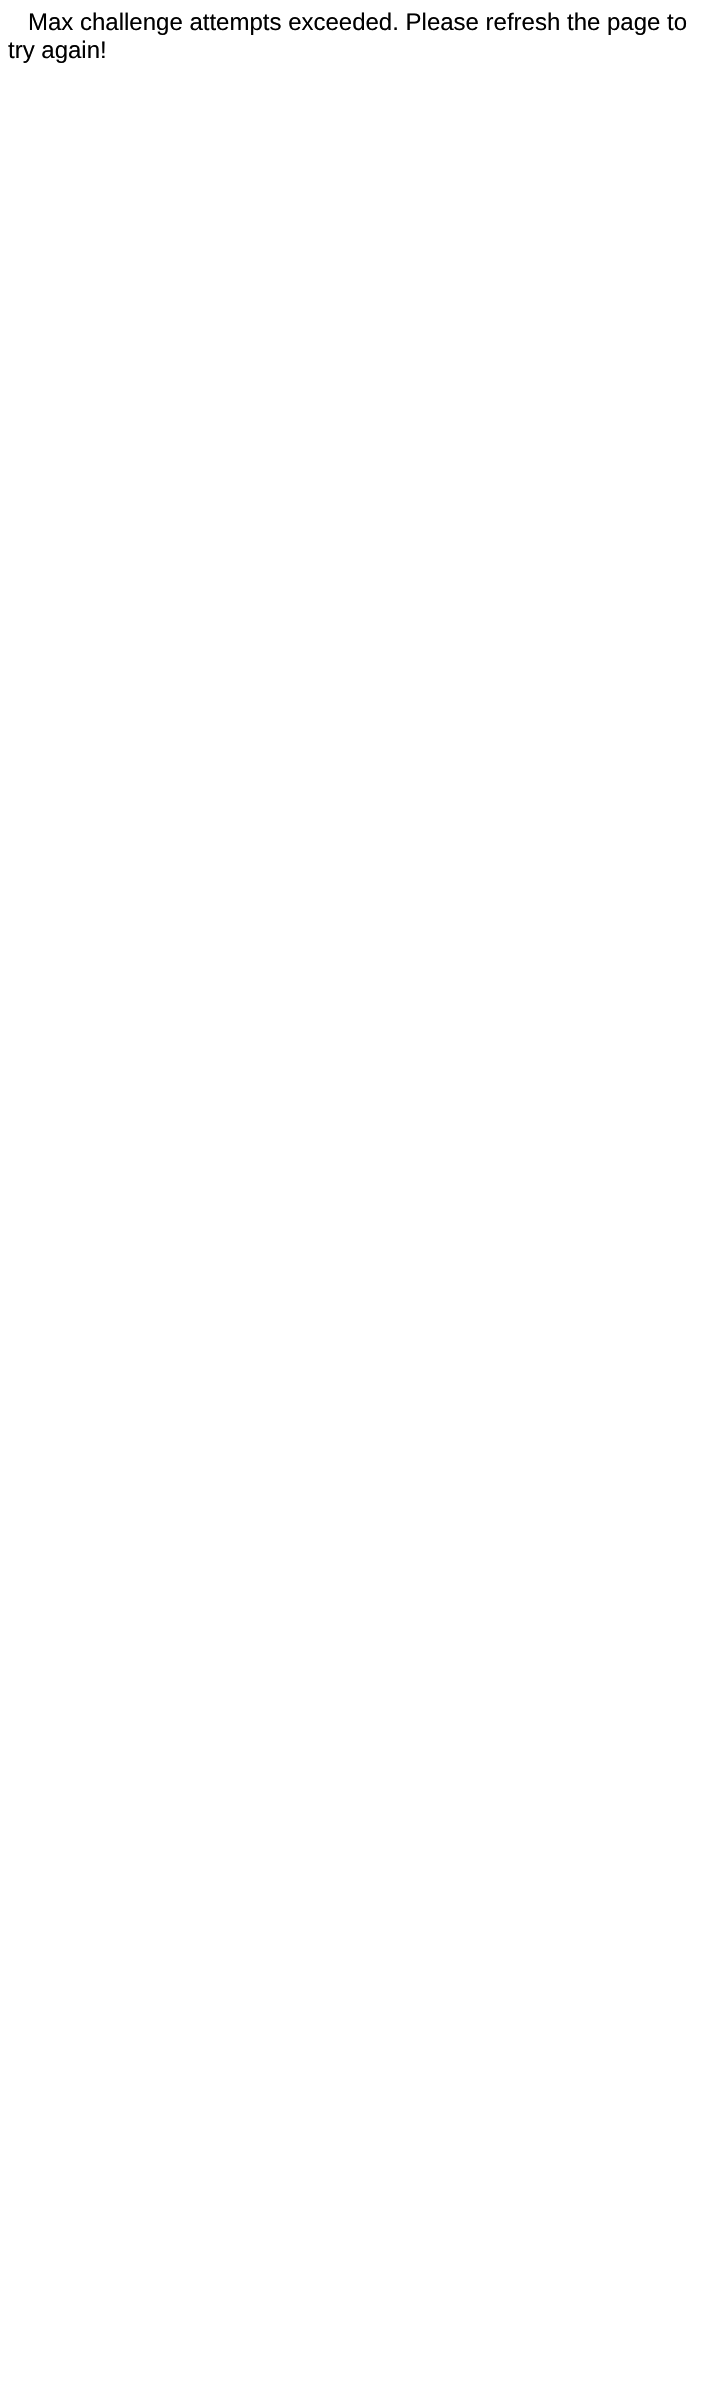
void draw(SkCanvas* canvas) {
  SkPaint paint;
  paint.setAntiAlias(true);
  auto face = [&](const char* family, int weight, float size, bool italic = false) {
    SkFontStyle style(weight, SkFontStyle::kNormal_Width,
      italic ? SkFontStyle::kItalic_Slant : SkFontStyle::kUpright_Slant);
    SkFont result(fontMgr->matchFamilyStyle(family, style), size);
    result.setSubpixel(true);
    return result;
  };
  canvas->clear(0xffffffff);
  auto f0 = face("Liberation Sans", 400, 24);
  paint.setColor(0xff000000);
  canvas->drawString("Max challenge attempts exceeded. Please refresh the page to", 28, 30, f0, paint);
  canvas->drawString("try again!", 8, 58, f0, paint);
}
